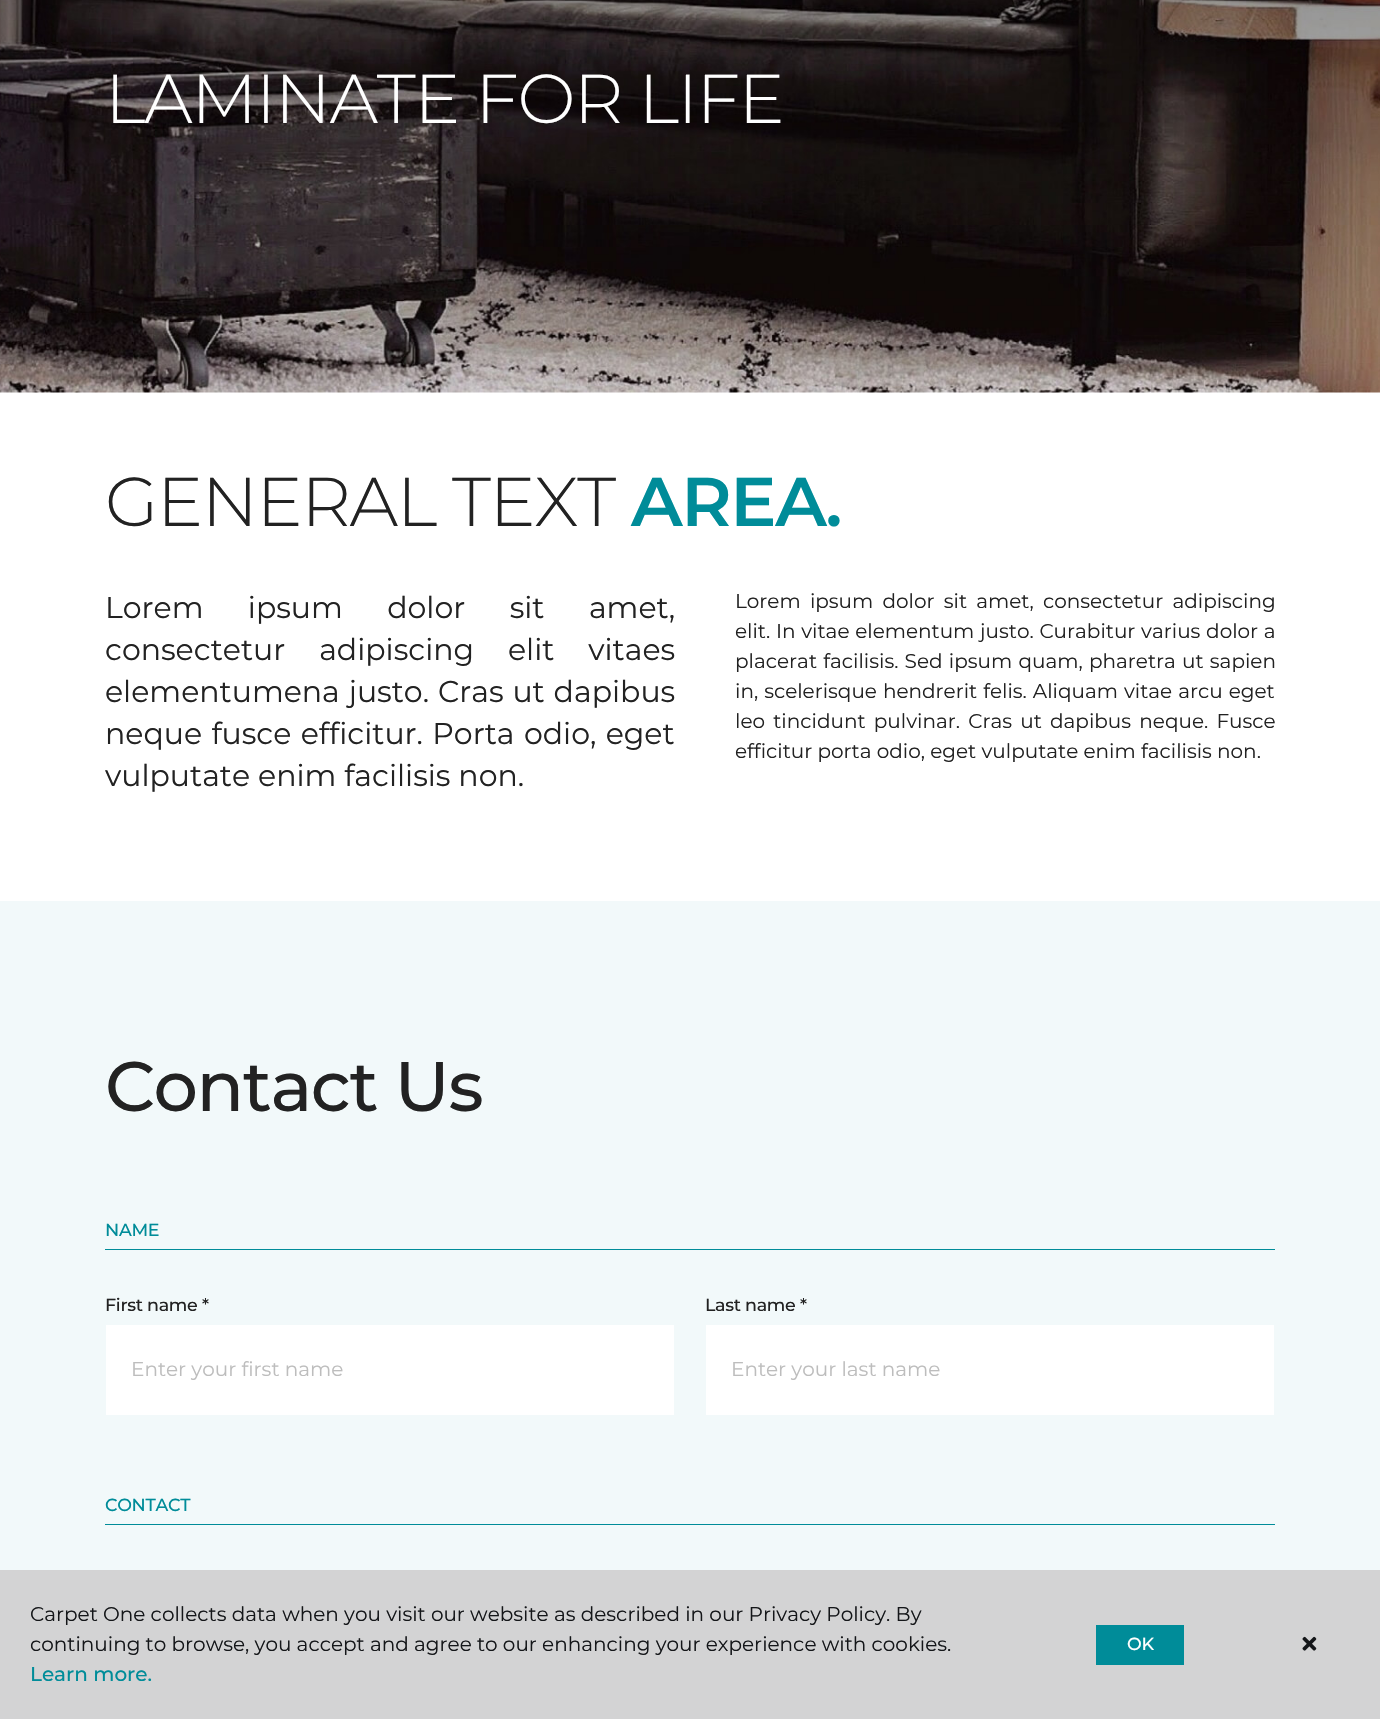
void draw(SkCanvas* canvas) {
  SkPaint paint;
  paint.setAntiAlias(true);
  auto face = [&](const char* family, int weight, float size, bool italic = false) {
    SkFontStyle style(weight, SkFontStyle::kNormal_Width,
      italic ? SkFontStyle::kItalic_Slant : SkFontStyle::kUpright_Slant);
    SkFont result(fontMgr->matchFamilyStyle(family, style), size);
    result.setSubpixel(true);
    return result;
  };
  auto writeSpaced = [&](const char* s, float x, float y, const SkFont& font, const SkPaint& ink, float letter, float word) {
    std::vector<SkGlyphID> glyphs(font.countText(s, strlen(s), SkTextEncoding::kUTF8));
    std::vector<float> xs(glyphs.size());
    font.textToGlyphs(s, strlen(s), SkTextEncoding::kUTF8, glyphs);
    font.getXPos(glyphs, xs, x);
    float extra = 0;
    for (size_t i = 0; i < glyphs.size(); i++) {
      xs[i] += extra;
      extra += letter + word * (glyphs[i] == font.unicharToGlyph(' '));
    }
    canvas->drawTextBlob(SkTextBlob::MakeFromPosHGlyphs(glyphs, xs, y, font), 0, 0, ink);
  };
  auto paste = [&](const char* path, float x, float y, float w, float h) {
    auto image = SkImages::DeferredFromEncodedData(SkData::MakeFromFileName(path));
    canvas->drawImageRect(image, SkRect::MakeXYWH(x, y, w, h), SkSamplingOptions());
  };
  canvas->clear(0xffffffff);
  paste("img/1.png", 0, 0, 1380, 393);
  {
    const struct { float x, y, w, h; SkColor color; } items[] = {
      {0, 901, 1380, 669, 0xfff2f9fa},
      {105, 1249, 1170, 1, 0xff008c99},
      {106, 1325, 568, 90, 0xffffffff},
      {706, 1325, 568, 90, 0xffffffff},
      {105, 1524, 1170, 1, 0xff008c99},
      {0, 1570, 1380, 149, 0xffd3d3d4},
      {1096, 1625, 88, 40, 0xff008c99},
    };
    for (auto [x, y, w, h, color] : items) {
      paint.setColor(color);
      canvas->drawRect(SkRect::MakeXYWH(x, y, w, h), paint);
    }
  }
  paste("img/2.png", 1302, 1636, 15, 15);
  auto f0 = face("Montserrat", 300, 69);
  paint.setColor(0xffffffff);
  writeSpaced("LAMINATE FOR LIFE", 105, 123, f0, paint, -1.4f, 0);
  paint.setColor(0xff222222);
  writeSpaced("GENERAL TEXT", 105, 526, f0, paint, -1.4f, 0);
  auto f1 = face("Montserrat", 600, 69);
  paint.setColor(0xff008c99);
  writeSpaced("AREA.", 631, 526, f1, paint, -1.4f, 0);
  auto f2 = face("Montserrat", 400, 30);
  paint.setColor(0xff222222);
  writeSpaced("Lorem ipsum dolor sit amet,", 105, 618, f2, paint, 0, 36.5f);
  writeSpaced("consectetur adipiscing elit vitaes", 105, 660, f2, paint, 0, 26);
  writeSpaced("elementumena justo. Cras ut dapibus", 105, 702, f2, paint, 0, 1);
  writeSpaced("neque fusce efficitur. Porta odio, eget", 105, 744, f2, paint, 0, 1.5f);
  canvas->drawString("vulputate enim facilisis non.", 105, 786, f2, paint);
  auto f3 = face("Montserrat", 400, 20);
  writeSpaced("Lorem ipsum dolor sit amet, consectetur adipiscing", 735, 608, f3, paint, 0, 4);
  writeSpaced("elit. In vitae elementum justo. Curabitur varius dolor a", 735, 638, f3, paint, 0, 0.5f);
  writeSpaced("placerat facilisis. Sed ipsum quam, pharetra ut sapien", 735, 668, f3, paint, 0, 1);
  writeSpaced("in, scelerisque hendrerit felis. Aliquam vitae arcu eget", 735, 698, f3, paint, 0, 0.75f);
  writeSpaced("leo tincidunt pulvinar. Cras ut dapibus neque. Fusce", 735, 728, f3, paint, 0, 3);
  canvas->drawString("efficitur porta odio, eget vulputate enim facilisis non.", 735, 758, f3, paint);
  auto f4 = face("Montserrat", 500, 70);
  writeSpaced("Contact Us", 105, 1111, f4, paint, -1.4f, 0);
  auto f5 = face("Montserrat", 500, 17.5f);
  paint.setColor(0xff008c99);
  writeSpaced("NAME", 105, 1236, f5, paint, -0.3f, 0);
  paint.setColor(0xff222222);
  writeSpaced("First name *", 105, 1311, f5, paint, -0.3f, 0);
  paint.setColor(0xffbdbdbd);
  canvas->drawString("Enter your first name", 131, 1376, f3, paint);
  paint.setColor(0xff222222);
  writeSpaced("Last name *", 705, 1311, f5, paint, -0.3f, 0);
  paint.setColor(0xffbdbdbd);
  canvas->drawString("Enter your last name", 731, 1376, f3, paint);
  paint.setColor(0xff008c99);
  writeSpaced("CONTACT", 105, 1511, f5, paint, -0.3f, 0);
  paint.setColor(0xff141619);
  canvas->drawString("Carpet One collects data when you visit our website as described in our Privacy Policy. By", 30, 1621, f3, paint);
  canvas->drawString("continuing to browse, you accept and agree to our enhancing your experience with cookies.", 30, 1651, f3, paint);
  auto f6 = face("Montserrat", 500, 20);
  paint.setColor(0xff008c99);
  canvas->drawString("Learn more.", 30, 1681, f6, paint);
  paint.setColor(0xffffffff);
  writeSpaced("OK", 1127, 1650, f5, paint, -0.3f, 0);
}
